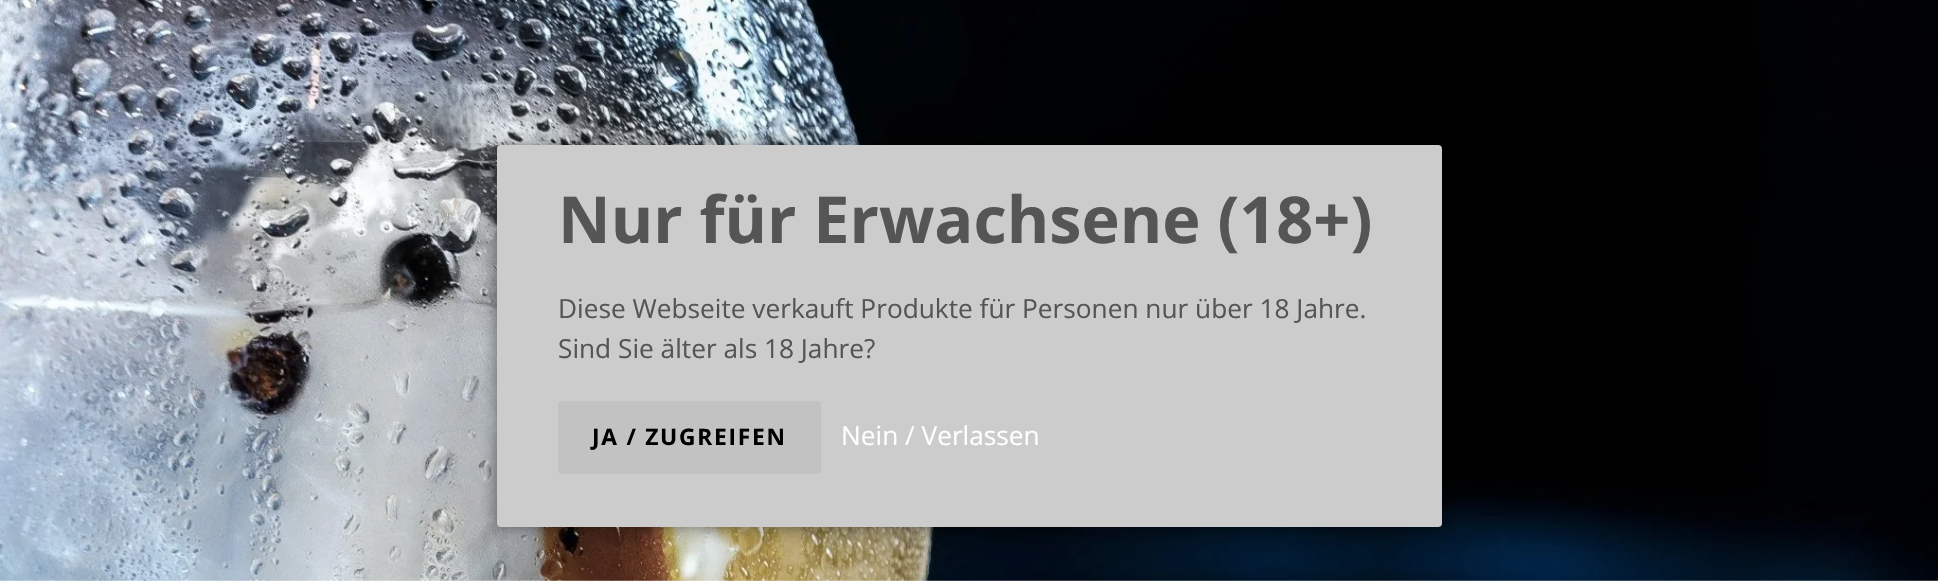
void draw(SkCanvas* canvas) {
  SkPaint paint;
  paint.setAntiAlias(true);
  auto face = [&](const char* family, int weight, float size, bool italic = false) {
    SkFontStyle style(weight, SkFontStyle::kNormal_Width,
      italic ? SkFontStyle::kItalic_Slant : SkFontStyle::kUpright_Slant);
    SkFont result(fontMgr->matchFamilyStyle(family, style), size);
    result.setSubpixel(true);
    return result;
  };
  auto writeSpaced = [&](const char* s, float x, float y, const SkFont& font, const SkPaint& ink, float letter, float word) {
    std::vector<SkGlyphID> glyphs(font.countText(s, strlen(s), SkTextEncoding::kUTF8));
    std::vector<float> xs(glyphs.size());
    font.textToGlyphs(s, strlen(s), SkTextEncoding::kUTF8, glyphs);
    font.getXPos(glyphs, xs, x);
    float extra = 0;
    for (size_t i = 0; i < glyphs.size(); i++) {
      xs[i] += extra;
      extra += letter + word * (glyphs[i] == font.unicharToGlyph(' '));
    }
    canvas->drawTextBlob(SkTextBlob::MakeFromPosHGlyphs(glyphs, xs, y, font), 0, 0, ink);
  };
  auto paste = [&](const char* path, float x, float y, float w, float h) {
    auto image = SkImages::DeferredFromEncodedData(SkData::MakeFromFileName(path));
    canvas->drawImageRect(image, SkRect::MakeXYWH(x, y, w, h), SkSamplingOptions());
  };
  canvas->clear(0xffffffff);
  paste("img/1.png", 0, 0, 1938, 581);
  paint.setColor(0x80000000);
  paint.setMaskFilter(SkMaskFilter::MakeBlur(kNormal_SkBlurStyle, 9));
  canvas->drawRoundRect(SkRect::MakeXYWH(497, 145, 945, 382), 4, 4, paint);
  paint.setMaskFilter(nullptr);
  paint.setColor(0xffcccccc);
  canvas->drawRoundRect(SkRect::MakeXYWH(497, 145, 945, 382), 4, 4, paint);
  paint.setColor(0xffc2c2c2);
  canvas->drawRoundRect(SkRect::MakeXYWH(558, 401, 263, 73), 4, 4, paint);
  auto f0 = face("Open Sans", 700, 64.75f);
  paint.setColor(0xff555555);
  canvas->drawString("Nur für Erwachsene (18+)", 558, 243, f0, paint);
  auto f1 = face("Open Sans", 400, 26.25f);
  canvas->drawString("Diese Webseite verkauft Produkte für Personen nur über 18 Jahre.", 558, 318, f1, paint);
  canvas->drawString("Sind Sie älter als 18 Jahre?", 558, 358, f1, paint);
  auto f2 = face("Open Sans", 700, 22.75f);
  paint.setColor(0xff000000);
  writeSpaced("JA / ZUGREIFEN", 592, 445, f2, paint, 1.75f, 0);
  paint.setColor(0xffffffff);
  canvas->drawString("Nein / Verlassen", 841, 445, f1, paint);
}
